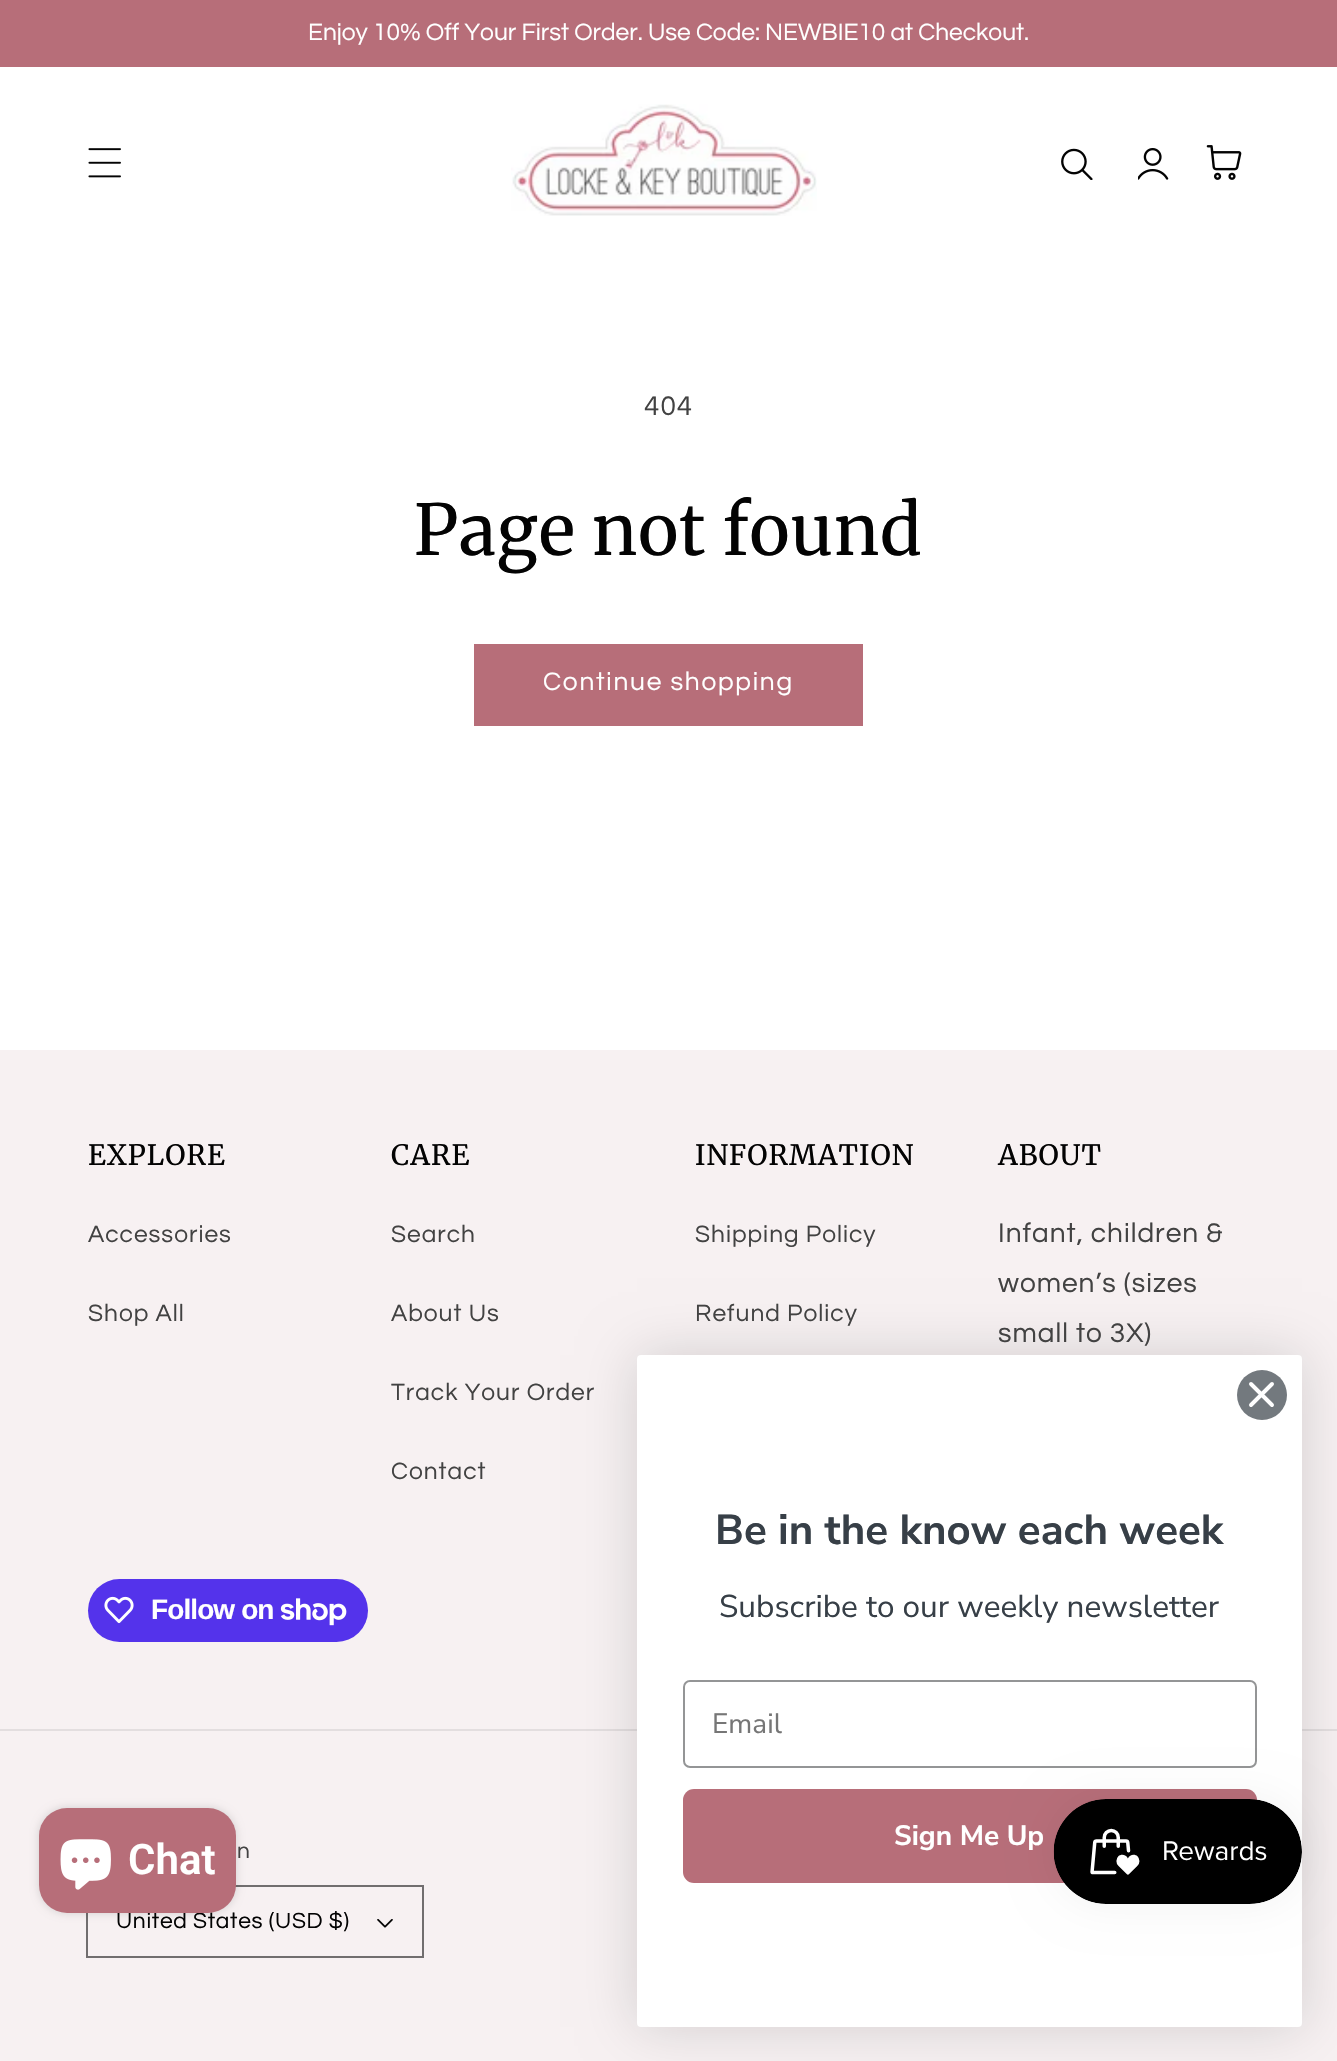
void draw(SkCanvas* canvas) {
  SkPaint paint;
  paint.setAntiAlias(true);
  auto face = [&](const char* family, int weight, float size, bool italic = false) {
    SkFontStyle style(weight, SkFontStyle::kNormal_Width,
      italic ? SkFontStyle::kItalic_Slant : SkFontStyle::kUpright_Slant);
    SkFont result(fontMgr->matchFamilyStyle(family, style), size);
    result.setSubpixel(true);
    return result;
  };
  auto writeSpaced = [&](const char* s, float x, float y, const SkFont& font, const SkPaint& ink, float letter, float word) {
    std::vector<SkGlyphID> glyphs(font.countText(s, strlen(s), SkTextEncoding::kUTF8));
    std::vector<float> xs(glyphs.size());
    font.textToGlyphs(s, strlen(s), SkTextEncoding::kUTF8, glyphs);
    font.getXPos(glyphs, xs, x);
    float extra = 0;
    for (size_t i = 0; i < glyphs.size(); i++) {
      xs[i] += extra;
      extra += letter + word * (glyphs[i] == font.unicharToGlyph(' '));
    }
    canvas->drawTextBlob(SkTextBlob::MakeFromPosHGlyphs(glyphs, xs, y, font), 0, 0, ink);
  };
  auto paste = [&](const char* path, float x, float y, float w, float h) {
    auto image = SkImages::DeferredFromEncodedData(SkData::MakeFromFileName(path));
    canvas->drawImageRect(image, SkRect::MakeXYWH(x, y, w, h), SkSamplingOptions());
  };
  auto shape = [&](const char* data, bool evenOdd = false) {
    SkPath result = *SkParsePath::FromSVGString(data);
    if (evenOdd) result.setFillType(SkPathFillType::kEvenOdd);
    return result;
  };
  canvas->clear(0xffffffff);
  paint.setColor(0xffb76e79);
  canvas->drawRect(SkRect::MakeXYWH(0, 0, 1337, 67), paint);
  paste("img/1.png", 88, 148, 33, 30);
  paste("img/2.png", 511, 104, 306, 112);
  paste("img/3.png", 1061, 148, 32, 32);
  paste("img/4.png", 1138, 148, 31, 32);
  paste("img/5.png", 1206, 145, 36, 35);
  paint.setStroke(true);
  paint.setStrokeWidth(2);
  canvas->drawRect(SkRect::MakeXYWH(475, 645, 387, 80), paint);
  paint.setStroke(false);
  canvas->drawRect(SkRect::MakeXYWH(476, 646, 385, 78), paint);
  paint.setColor(0xfff7f1f2);
  canvas->drawRect(SkRect::MakeXYWH(0, 1050, 1337, 1011), paint);
  paint.setColor(0xff5433eb);
  canvas->drawRoundRect(SkRect::MakeXYWH(88, 1579, 280, 63), 31.5f, 31.5f, paint);
  paste("img/6.png", 104, 1596, 30, 28);
  paste("img/7.png", 280, 1598, 67, 28);
  paint.setColor(0xffe3dedf);
  canvas->drawRect(SkRect::MakeXYWH(0, 1729, 1337, 2), paint);
  paint.setStroke(true);
  paint.setColor(0xff716e6f);
  canvas->drawRect(SkRect::MakeXYWH(87, 1886, 336, 71), paint);
  paste("img/8.png", 377, 1919, 16, 9);
  paint.setStroke(false);
  paint.setColor(0x26000000);
  paint.setMaskFilter(SkMaskFilter::MakeBlur(kNormal_SkBlurStyle, 26));
  canvas->drawRect(SkRect::MakeXYWH(637, 1355, 665, 672), paint);
  paint.setMaskFilter(nullptr);
  paint.setColor(0xffffffff);
  canvas->drawRoundRect(SkRect::MakeXYWH(637, 1355, 665, 672), 4, 4, paint);
  paint.setColor(0xff73797e);
  canvas->drawCircle(1262, 1395, 25, paint);
  paint.setStroke(true);
  paint.setStrokeWidth(3.9f);
  paint.setStrokeCap(SkPaint::kRound_Cap);
  paint.setStrokeJoin(SkPaint::kRound_Join);
  paint.setColor(0xffffffff);
  canvas->drawPath(shape("M1251 1384L1272 1405M1251 1405L1272 1384Z"), paint);
  paint.setStrokeWidth(2);
  paint.setStrokeCap(SkPaint::kButt_Cap);
  paint.setStrokeJoin(SkPaint::kMiter_Join);
  paint.setColor(0xff949596);
  canvas->drawRoundRect(SkRect::MakeXYWH(684, 1681, 572, 86), 6, 6, paint);
  paint.setStroke(false);
  paint.setColor(0xffb76e79);
  canvas->drawRoundRect(SkRect::MakeXYWH(683, 1789, 574, 94), 11, 11, paint);
  paint.setColor(0x26000000);
  paint.setMaskFilter(SkMaskFilter::MakeBlur(kNormal_SkBlurStyle, 4.5f));
  canvas->drawRoundRect(SkRect::MakeXYWH(39, 1808, 197, 105), 28, 28, paint);
  paint.setMaskFilter(nullptr);
  paint.setColor(0x0d000000);
  paint.setMaskFilter(SkMaskFilter::MakeBlur(kNormal_SkBlurStyle, 22));
  canvas->drawRoundRect(SkRect::MakeXYWH(1054, 1799, 248, 105), 52.5f, 52.5f, paint);
  paint.setMaskFilter(nullptr);
  paste("img/10.png", 1053, 1799, 249, 105);
  auto f0 = face("Questrial", 400, 24.5f);
  paint.setColor(0xffffffff);
  canvas->drawString("Enjoy 10% Off Your First Order. Use Code: NEWBIE10 at Checkout.", 308, 40, f0, paint);
  auto f1 = face("Questrial", 400, 28);
  paint.setColor(0xff424242);
  writeSpaced("404", 644, 415, f1, paint, 1, 0);
  auto f2 = face("Merriweather", 400, 70);
  paint.setColor(0xff030303);
  writeSpaced("Page not found", 414, 555, f2, paint, 1, 0);
  auto f3 = face("Questrial", 400, 26.25f);
  paint.setColor(0xffffffff);
  writeSpaced("Continue shopping", 543, 690, f3, paint, 1.75f, 0);
  auto f4 = face("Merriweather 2", 400, 28);
  paint.setColor(0xff030303);
  writeSpaced("EXPLORE", 88, 1165, f4, paint, 1, 0);
  paint.setColor(0xff424242);
  writeSpaced("Accessories", 88, 1242, f0, paint, 1, 0);
  writeSpaced("Shop All", 88, 1321, f0, paint, 1, 0);
  paint.setColor(0xff030303);
  writeSpaced("CARE", 391, 1165, f4, paint, 1, 0);
  paint.setColor(0xff424242);
  {
    const struct { const char* s; float x, y; } items[] = {
      {"Search", 391, 1242},
      {"About Us", 391, 1321},
      {"Track Your Order", 391, 1400},
      {"Contact", 391, 1479},
    };
    for (auto [s, x, y] : items) {
      writeSpaced(s, x, y, f0, paint, 1, 0);
    }
  }
  paint.setColor(0xff030303);
  writeSpaced("INFORMATION", 695, 1165, f4, paint, 1, 0);
  paint.setColor(0xff424242);
  writeSpaced("Shipping Policy", 695, 1242, f0, paint, 1, 0);
  writeSpaced("Refund Policy", 695, 1321, f0, paint, 1, 0);
  paint.setColor(0xff030303);
  writeSpaced("ABOUT", 998, 1165, f4, paint, 1, 0);
  paint.setColor(0xff424242);
  {
    const struct { const char* s; float x, y; } items[] = {
      {"Infant, children &", 998, 1242},
      {"women’s (sizes", 998, 1292},
      {"small to 3X)", 998, 1342},
    };
    for (auto [s, x, y] : items) {
      writeSpaced(s, x, y, f1, paint, 1, 0);
    }
  }
  auto f5 = face("Liberation Sans", 700, 28);
  paint.setColor(0xffffffff);
  writeSpaced("Follow on", 151, 1619, f5, paint, -0.9f, 0);
  auto f6 = face("Questrial", 400, 22.75f);
  paint.setColor(0xff424242);
  writeSpaced("n", 237, 1858, f6, paint, 0.7f, 0);
  paint.setColor(0xff030303);
  writeSpaced("United States (USD $)", 116, 1928, f6, paint, 0.7f, 0);
  auto f7 = face("Nunito Sans", 700, 42);
  paint.setColor(0xff373f47);
  canvas->drawString("Be in the know each week", 715, 1544, f7, paint);
  auto f8 = face("Nunito Sans", 400, 31.5f);
  canvas->drawString("Subscribe to our weekly newsletter", 719, 1617, f8, paint);
  auto f9 = face("Nunito Sans", 400, 28);
  paint.setColor(0xff767676);
  canvas->drawString("Email", 712, 1733, f9, paint);
  auto f10 = face("Nunito Sans", 700, 28);
  paint.setColor(0xffffffff);
  canvas->drawString("Sign Me Up", 894, 1845, f10, paint);
  paint.setColor(0xffb76e79);
  canvas->drawRoundRect(SkRect::MakeXYWH(39, 1808, 197, 105), 28, 28, paint);
  paste("img/9.png", 60, 1839, 51, 51);
  auto f11 = face("Roboto", 600, 42);
  paint.setColor(0xffffffff);
  canvas->drawString("Chat", 128, 1874, f11, paint);
}
